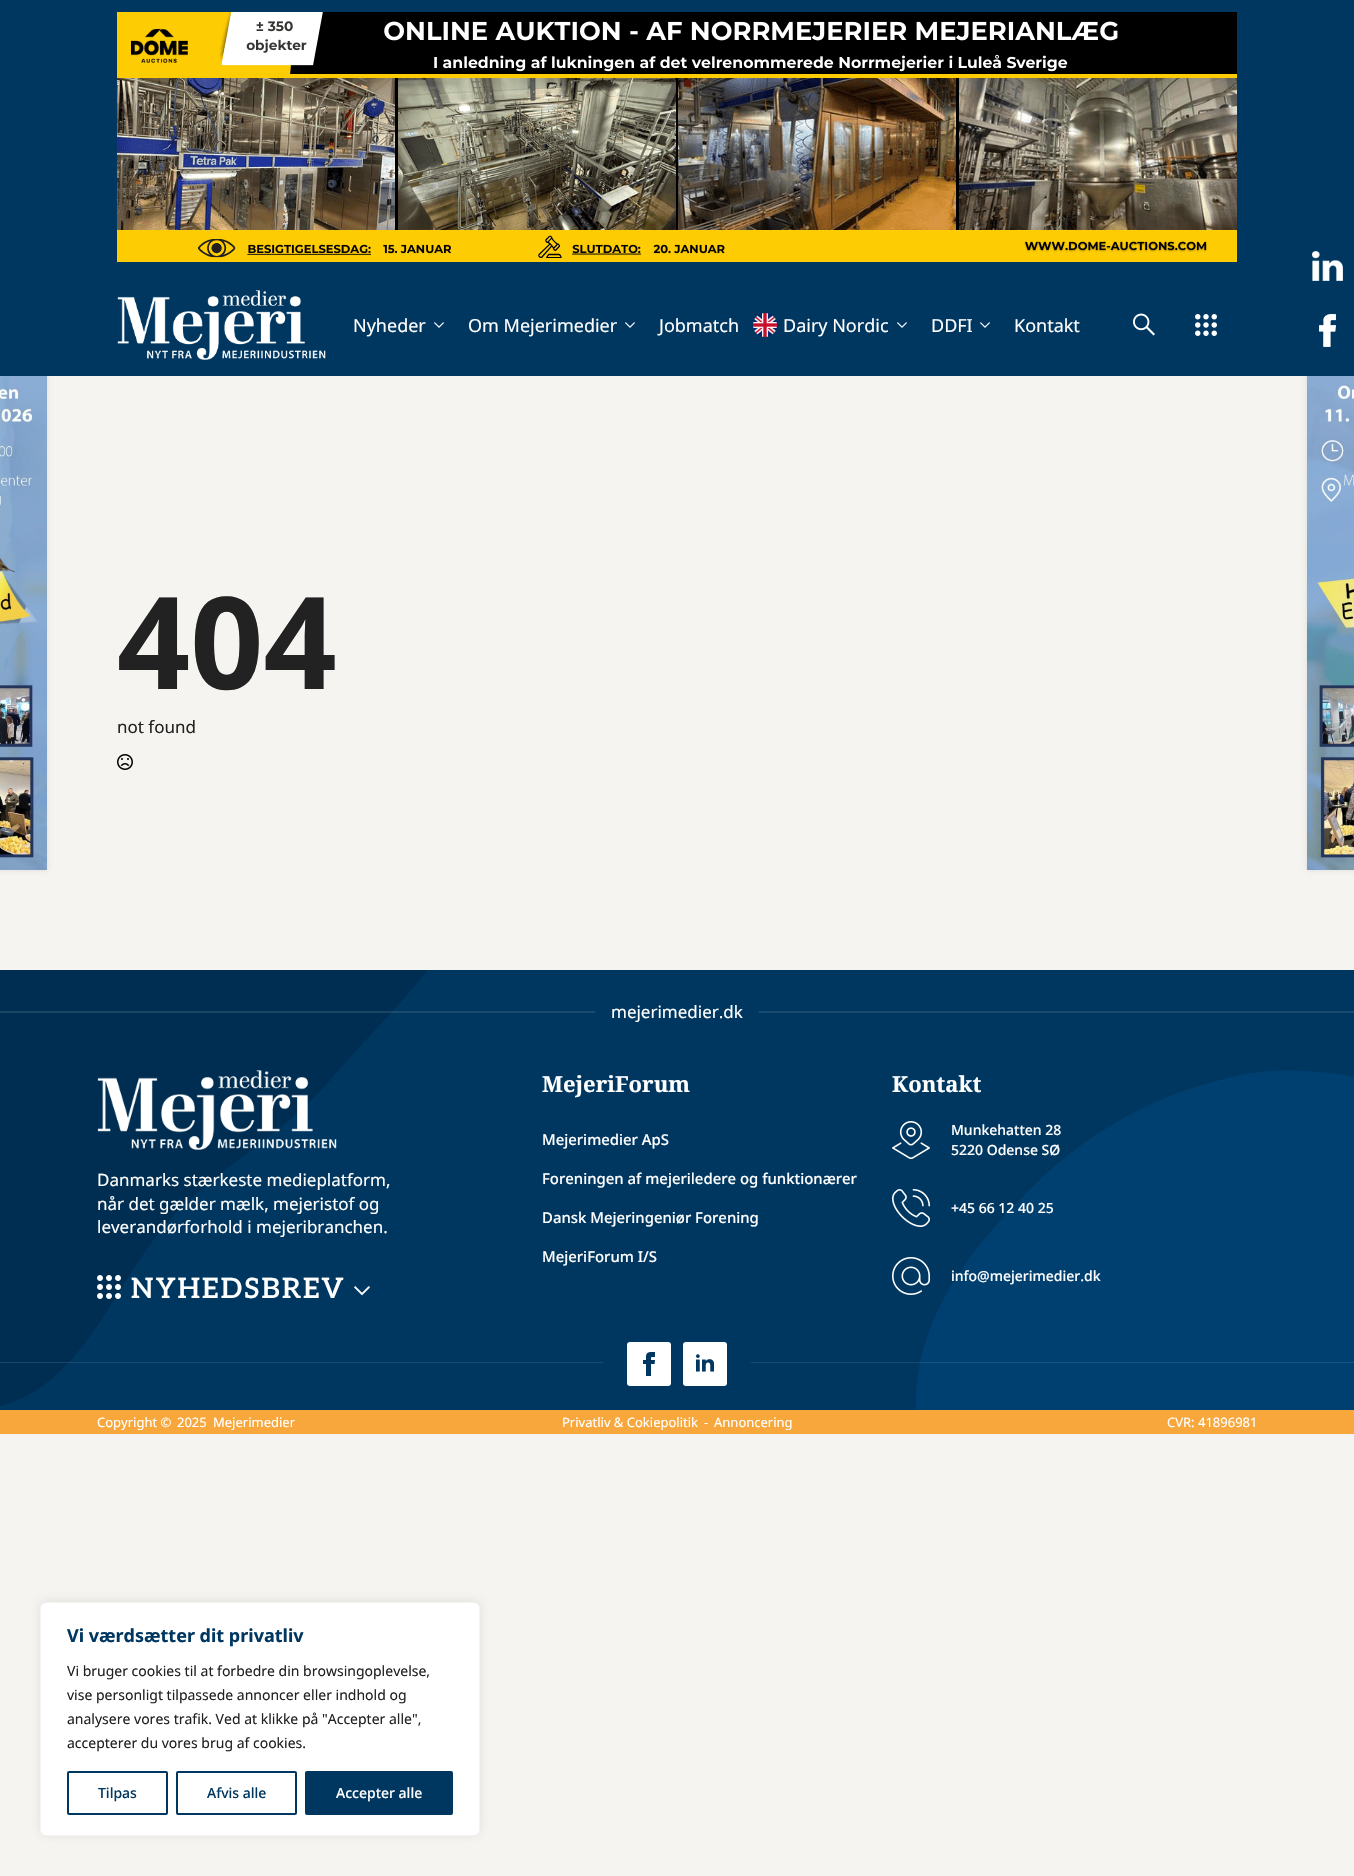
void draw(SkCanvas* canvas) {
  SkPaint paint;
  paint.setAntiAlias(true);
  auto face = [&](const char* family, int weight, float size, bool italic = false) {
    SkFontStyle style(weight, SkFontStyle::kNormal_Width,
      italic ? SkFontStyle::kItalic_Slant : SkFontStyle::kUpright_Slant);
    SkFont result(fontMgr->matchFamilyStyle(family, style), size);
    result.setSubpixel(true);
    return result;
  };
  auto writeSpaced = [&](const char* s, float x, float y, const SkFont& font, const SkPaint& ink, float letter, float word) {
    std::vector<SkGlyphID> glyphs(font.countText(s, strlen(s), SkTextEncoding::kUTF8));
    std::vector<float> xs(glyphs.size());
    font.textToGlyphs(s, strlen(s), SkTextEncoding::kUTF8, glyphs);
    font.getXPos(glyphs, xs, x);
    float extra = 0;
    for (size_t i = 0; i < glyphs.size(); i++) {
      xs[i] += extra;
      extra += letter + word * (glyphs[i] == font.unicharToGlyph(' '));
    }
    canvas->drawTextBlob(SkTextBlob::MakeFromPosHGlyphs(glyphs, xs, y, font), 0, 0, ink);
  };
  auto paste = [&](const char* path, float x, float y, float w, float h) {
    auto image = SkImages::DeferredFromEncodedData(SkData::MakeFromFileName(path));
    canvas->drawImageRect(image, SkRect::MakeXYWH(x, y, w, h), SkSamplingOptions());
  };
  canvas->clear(0xfff6f4f0);
  paint.setColor(0x1a000000);
  paint.setMaskFilter(SkMaskFilter::MakeBlur(kNormal_SkBlurStyle, 2.5f));
  canvas->drawRect(SkRect::MakeXYWH(-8, 270, 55, 600), paint);
  paint.setMaskFilter(nullptr);
  paint.setMaskFilter(SkMaskFilter::MakeBlur(kNormal_SkBlurStyle, 2.5f));
  canvas->drawRect(SkRect::MakeXYWH(1307, 270, 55, 600), paint);
  paint.setMaskFilter(nullptr);
  paint.setColor(0xff003761);
  canvas->drawRect(SkRect::MakeXYWH(0, 0, 1354, 376), paint);
  paste("img/1.png", 117, 12, 1120, 250);
  paste("img/2.png", 1312, 251, 31, 30);
  paste("img/3.png", 1319, 314, 17, 33);
  paste("img/4.png", 0, 376, 47, 494);
  paste("img/5.png", 1307, 376, 47, 494);
  paste("img/6.png", 117, 290, 209, 70);
  paste("img/7.png", 434, 322, 10, 6);
  paste("img/7.png", 625, 322, 10, 6);
  paste("img/8.png", 753, 313, 24, 24);
  paste("img/7.png", 897, 322, 10, 6);
  paste("img/7.png", 980, 322, 10, 6);
  paste("img/9.png", 1133, 313, 22, 23);
  paste("img/10.png", 1195, 314, 22, 22);
  paste("img/11.png", 117, 754, 16, 16);
  paste("img/12.png", 0, 970, 1354, 440);
  paint.setColor(0x1affffff);
  canvas->drawRect(SkRect::MakeXYWH(0, 1011, 595, 2), paint);
  paint.setColor(0xff1a4b71);
  canvas->drawRect(SkRect::MakeXYWH(759, 1011, 595, 2), paint);
  paste("img/13.png", 97, 1070, 240, 80);
  paste("img/14.png", 97, 1275, 24, 24);
  paste("img/15.png", 354, 1286, 16, 10);
  paste("img/16.png", 892, 1121, 38, 38);
  paste("img/17.png", 892, 1189, 38, 38);
  paste("img/18.png", 892, 1257, 38, 38);
  paint.setColor(0x1affffff);
  canvas->drawRect(SkRect::MakeXYWH(0, 1362, 1354, 1), paint);
  paint.setColor(0xff003761);
  canvas->drawRect(SkRect::MakeXYWH(603, 1362, 148, 1), paint);
  paint.setColor(0xffffffff);
  canvas->drawRoundRect(SkRect::MakeXYWH(627, 1342, 44, 44), 3, 3, paint);
  paste("img/19.png", 643, 1352, 12, 24);
  canvas->drawRoundRect(SkRect::MakeXYWH(683, 1342, 44, 44), 3, 3, paint);
  paste("img/20.png", 696, 1354, 18, 18);
  paint.setColor(0xfff8a73d);
  canvas->drawRect(SkRect::MakeXYWH(0, 1410, 1354, 24), paint);
  paint.setColor(0x4dacabab);
  paint.setMaskFilter(SkMaskFilter::MakeBlur(kNormal_SkBlurStyle, 5));
  canvas->drawRoundRect(SkRect::MakeXYWH(40, 1601, 440, 234), 6, 6, paint);
  paint.setMaskFilter(nullptr);
  paint.setColor(0xffffffff);
  canvas->drawRoundRect(SkRect::MakeXYWH(40.5f, 1602.5f, 439, 233), 5.5f, 5.5f, paint);
  paint.setStroke(true);
  paint.setStrokeWidth(1);
  paint.setColor(0xfff4f4f4);
  canvas->drawRoundRect(SkRect::MakeXYWH(40.5f, 1602.5f, 439, 233), 5.5f, 5.5f, paint);
  paint.setStrokeWidth(2);
  paint.setColor(0xff003761);
  canvas->drawRoundRect(SkRect::MakeXYWH(68, 1772, 99, 42), 1, 1, paint);
  canvas->drawRoundRect(SkRect::MakeXYWH(177, 1772, 119, 42), 1, 1, paint);
  paint.setStroke(false);
  canvas->drawRoundRect(SkRect::MakeXYWH(306, 1772, 146, 42), 1, 1, paint);
  paint.setStroke(true);
  canvas->drawRoundRect(SkRect::MakeXYWH(306, 1772, 146, 42), 1, 1, paint);
  auto f0 = face("Noto Sans", 400, 18);
  paint.setStroke(false);
  paint.setColor(0xffffffff);
  {
    const struct { const char* s; float x, y; } items[] = {
      {"Nyheder", 353, 332},
      {"Om Mejerimedier", 468, 332},
      {"Jobmatch", 659, 332},
      {"Dairy Nordic", 783, 332},
      {"DDFI", 931, 332},
      {"Kontakt", 1014, 332},
    };
    for (auto [s, x, y] : items) {
      canvas->drawString(s, x, y, f0, paint);
    }
  }
  auto f1 = face("Noto Sans", 700, 128);
  paint.setColor(0xff222222);
  canvas->drawString("404", 117, 689, f1, paint);
  auto f2 = face("Noto Sans", 400, 17);
  canvas->drawString("not found", 117, 733, f2, paint);
  paint.setColor(0xffffffff);
  {
    const struct { const char* s; float x, y; } items[] = {
      {"mejerimedier.dk", 611, 1018},
      {"Danmarks stærkeste medieplatform,", 97, 1186},
      {"når det gælder mælk, mejeristof og", 97, 1210},
      {"leverandørforhold i mejeribranchen.", 97, 1233},
    };
    for (auto [s, x, y] : items) {
      canvas->drawString(s, x, y, f2, paint);
    }
  }
  auto f3 = face("Aleo", 600, 28);
  writeSpaced("NYHEDSBREV", 131, 1298, f3, paint, 2, 0);
  auto f4 = face("Noto Serif", 700, 22);
  canvas->drawString("MejeriForum", 542, 1092, f4, paint);
  auto f5 = face("Noto Sans", 500, 14.9f);
  {
    const struct { const char* s; float x, y; } items[] = {
      {"Mejerimedier ApS", 542, 1145},
      {"Foreningen af mejeriledere og funktionærer", 542, 1184},
      {"Dansk Mejeringeniør Forening", 542, 1223},
      {"MejeriForum I/S", 542, 1262},
    };
    for (auto [s, x, y] : items) {
      canvas->drawString(s, x, y, f5, paint);
    }
  }
  canvas->drawString("Kontakt", 892, 1092, f4, paint);
  auto f6 = face("Noto Sans", 500, 14);
  {
    const struct { const char* s; float x, y; } items[] = {
      {"Munkehatten 28", 951, 1135},
      {"5220 Odense SØ", 951, 1155},
      {"+45 66 12 40 25", 951, 1213},
      {"info@mejerimedier.dk", 951, 1281},
    };
    for (auto [s, x, y] : items) {
      canvas->drawString(s, x, y, f6, paint);
    }
  }
  auto f7 = face("Noto Sans", 400, 13);
  {
    const struct { const char* s; float x, y; } items[] = {
      {"Copyright ©", 97, 1427},
      {"2025", 177, 1427},
      {"Mejerimedier", 213, 1427},
      {"Privatliv & Cokiepolitik", 562, 1427},
      {"-", 704, 1427},
      {"Annoncering", 714, 1427},
      {"CVR: 41896981", 1167, 1427},
    };
    for (auto [s, x, y] : items) {
      canvas->drawString(s, x, y, f7, paint);
    }
  }
  auto f8 = face("Noto Sans", 700, 18);
  paint.setColor(0xff003761);
  canvas->drawString("Vi værdsætter dit privatliv", 67, 1642, f8, paint);
  auto f9 = face("Noto Sans", 400, 14);
  paint.setColor(0xff222222);
  {
    const struct { const char* s; float x, y; } items[] = {
      {"Vi bruger cookies til at forbedre din browsingoplevelse,", 67, 1676},
      {"vise personligt tilpassede annoncer eller indhold og", 67, 1700},
      {"analysere vores trafik. Ved at klikke på \"Accepter alle\",", 67, 1724},
      {"accepterer du vores brug af cookies.", 67, 1748},
    };
    for (auto [s, x, y] : items) {
      canvas->drawString(s, x, y, f9, paint);
    }
  }
  paint.setColor(0xff003761);
  canvas->drawString("Tilpas", 98, 1798, f6, paint);
  canvas->drawString("Afvis alle", 207, 1798, f6, paint);
  paint.setColor(0xffffffff);
  canvas->drawString("Accepter alle", 336, 1798, f6, paint);
}
